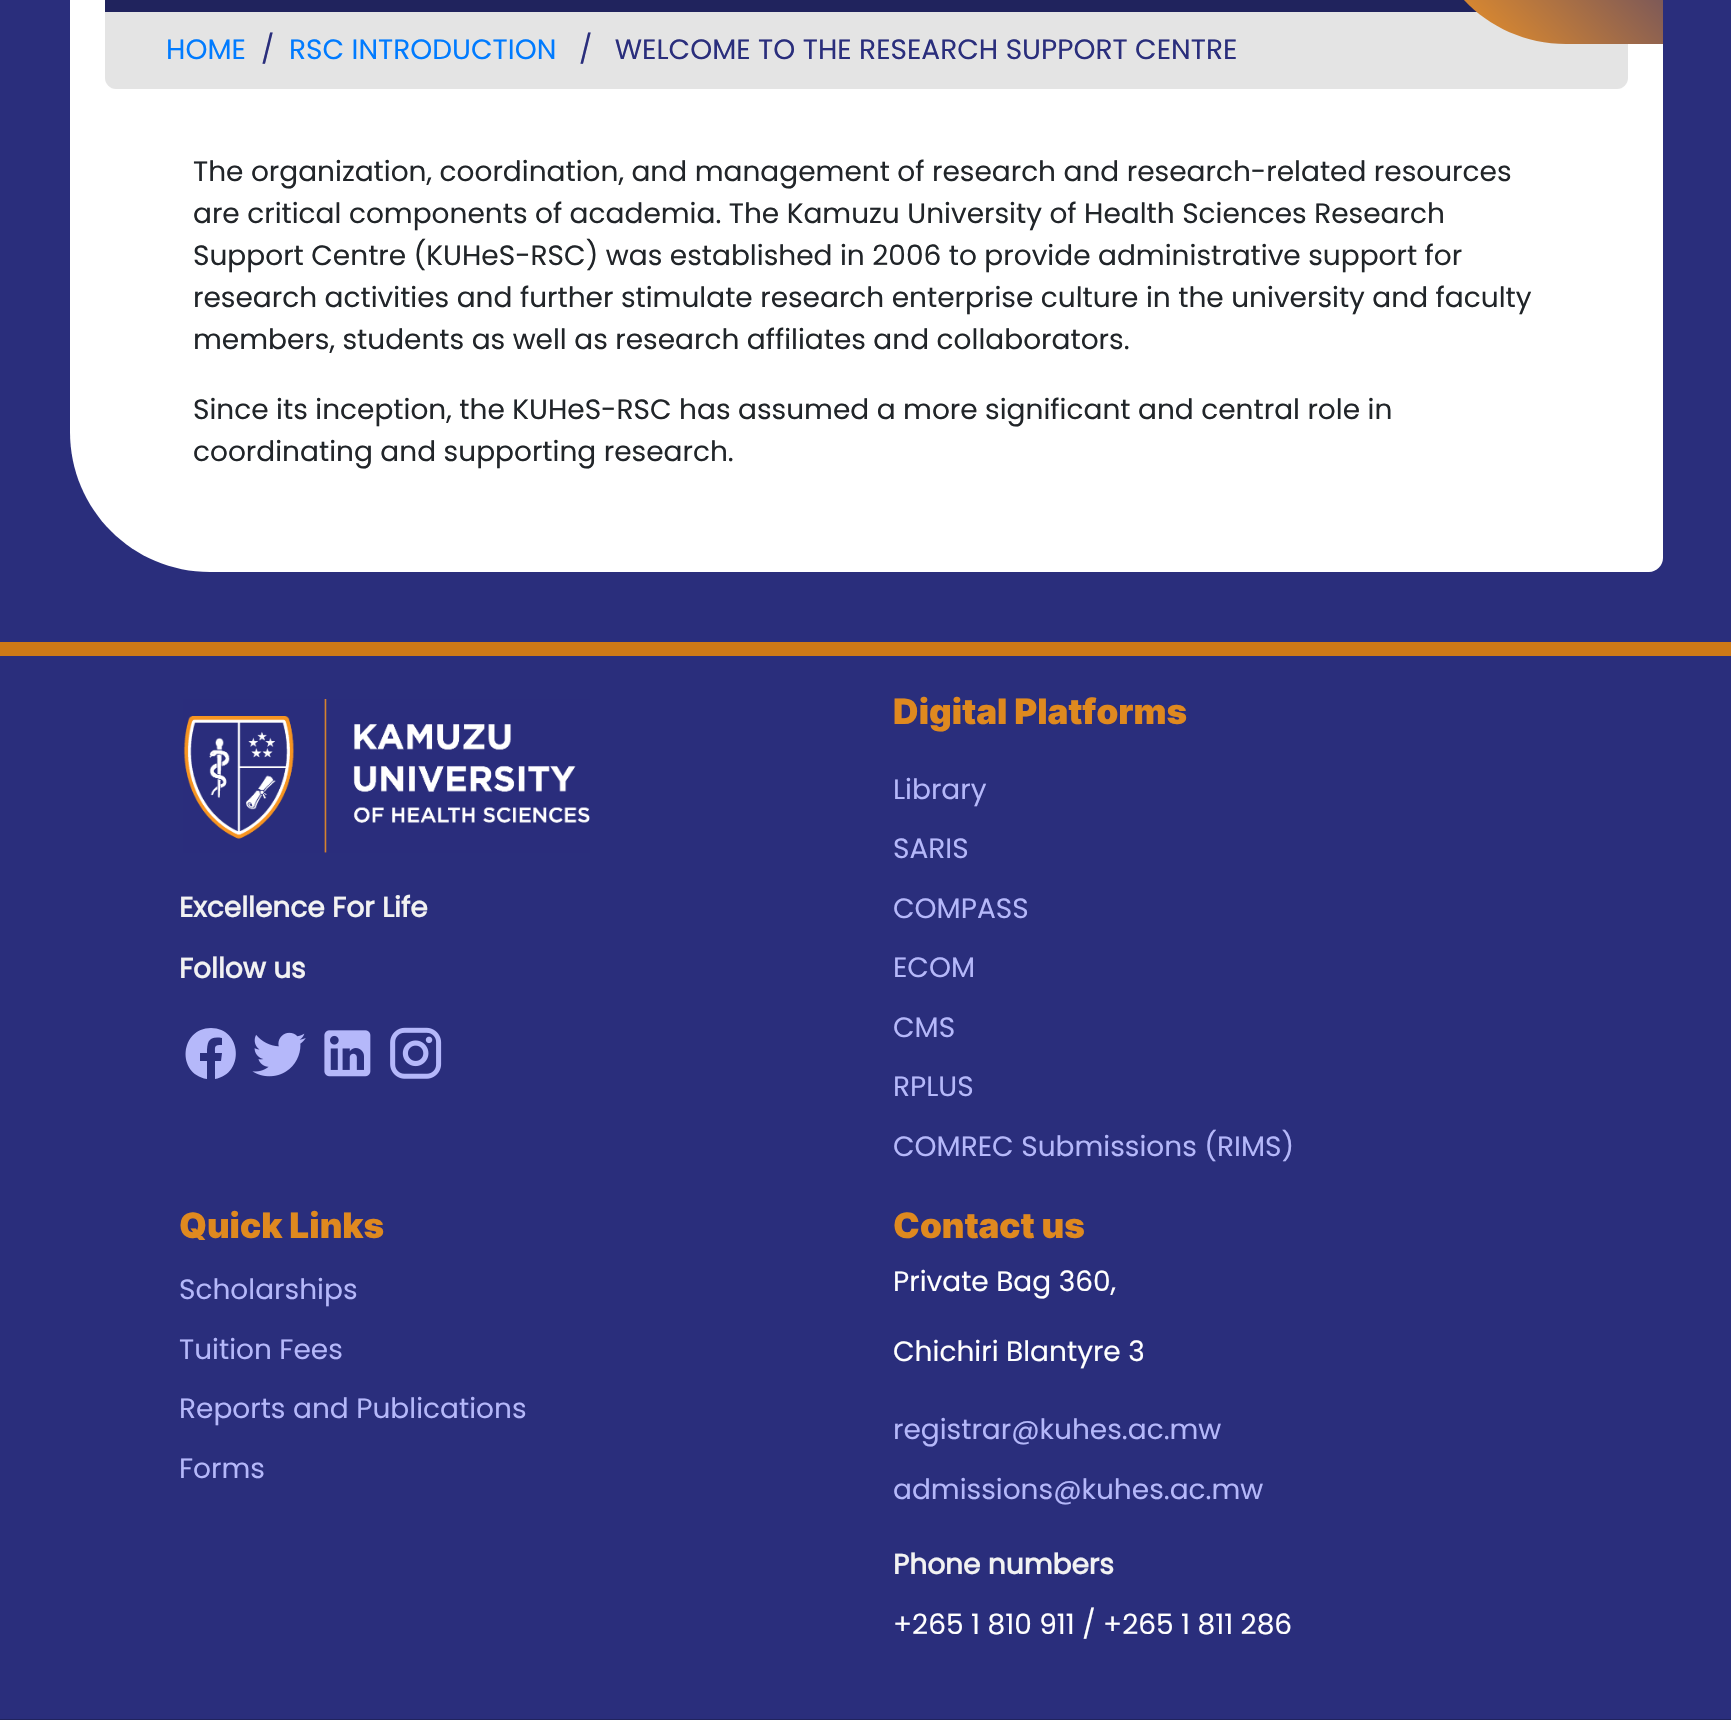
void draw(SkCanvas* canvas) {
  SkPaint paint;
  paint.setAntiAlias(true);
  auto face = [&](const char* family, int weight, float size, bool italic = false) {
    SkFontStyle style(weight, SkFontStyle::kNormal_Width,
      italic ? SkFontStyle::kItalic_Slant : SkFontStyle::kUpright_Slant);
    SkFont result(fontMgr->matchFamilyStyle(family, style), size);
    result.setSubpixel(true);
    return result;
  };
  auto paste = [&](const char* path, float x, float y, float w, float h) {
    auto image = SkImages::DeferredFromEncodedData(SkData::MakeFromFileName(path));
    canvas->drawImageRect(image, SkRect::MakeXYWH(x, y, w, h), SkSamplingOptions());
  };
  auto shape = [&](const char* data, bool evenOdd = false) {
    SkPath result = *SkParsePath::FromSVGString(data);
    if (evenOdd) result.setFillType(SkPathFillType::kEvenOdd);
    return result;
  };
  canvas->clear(0xff2a2e7c);
  paint.setColor(0xffffffff);
  canvas->drawPath(shape("M84-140H1649C1656.5-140 1663-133.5 1663-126V558C1663 565.5 1656.5 572 1649 572H210C132.5 572 70 509.5 70 432V-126C70-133.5 76.5-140 84-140Z"), paint);
  paint.setColor(0xff20235d);
  canvas->drawRect(SkRect::MakeXYWH(105, 0, 1372, 12), paint);
  paint.setColor(0xffe4e4e4);
  canvas->drawPath(shape("M105 12H1628V78C1628 84 1623 89 1617 89H116C110 89 105 84 105 78Z"), paint);
  {
    const SkColor colors[] = {0xfff89822, 0xff2a2e7c};
    const float stops[] = {0, 1};
    const SkPoint ends[] = {{1426, 44}, {1663, -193}};
    paint.setShader(SkGradientShader::MakeLinear(ends, colors, stops, 2, SkTileMode::kClamp));
    paint.setAlpha(255);
  }
  canvas->drawPath(shape("M1426-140H1663V44H1566C1488.5 44 1426-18.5 1426-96Z"), paint);
  paint.setShader(nullptr);
  paint.setColor(0xffcd7917);
  canvas->drawRect(SkRect::MakeXYWH(0, 642, 1731, 14), paint);
  paste("img/1.png", 183, 699, 407, 154);
  paint.setColor(0xffb5b8fa);
  canvas->drawPath(shape("M211 1028C180 1028 176 1074 207 1079V1061H200V1053H207C207 1041 209 1036 222 1038V1045C214 1045 215 1046 215 1053H222L221 1061H215V1079C245 1074 242 1028 211 1028Z"), paint);
  paste("img/2.png", 252, 1032, 54, 45);
  paste("img/3.png", 324, 1030, 47, 47);
  paste("img/4.png", 390, 1027, 52, 52);
  paint.setColor(0xff20235d);
  canvas->drawRect(SkRect::MakeXYWH(0, 1719, 1731, 1), paint);
  auto f0 = face("Poppins", 400, 28);
  paint.setColor(0xff007bff);
  canvas->drawString("HOME", 166, 59, f0, paint);
  paint.setColor(0xff2a2e7c);
  canvas->drawString("/", 261, 59, f0, paint);
  paint.setColor(0xff007bff);
  canvas->drawString("RSC INTRODUCTION", 289, 59, f0, paint);
  paint.setColor(0xff2a2e7c);
  canvas->drawString("/   WELCOME TO THE RESEARCH SUPPORT CENTRE", 579, 59, f0, paint);
  paint.setColor(0xff212529);
  {
    const struct { const char* s; float x, y; } items[] = {
      {"The organization, coordination, and management of research and research-related resources", 193, 181},
      {"are critical components of academia. The Kamuzu University of Health Sciences Research", 193, 223},
      {"Support Centre (KUHeS-RSC) was established in 2006 to provide administrative support for", 193, 265},
      {"research activities and further stimulate research enterprise culture in the university and faculty", 193, 307},
      {"members, students as well as research affiliates and collaborators.", 193, 349},
      {"Since its inception, the KUHeS-RSC has assumed a more significant and central role in", 193, 419},
      {"coordinating and supporting research.", 193, 461},
    };
    for (auto [s, x, y] : items) {
      canvas->drawString(s, x, y, f0, paint);
    }
  }
  auto f1 = face("Poppins", 700, 28);
  paint.setColor(0xfff2f2f2);
  canvas->drawString("Excellence For Life", 179, 917, f1, paint);
  canvas->drawString("Follow us", 179, 978, f1, paint);
  auto f2 = face("Inter", 900, 35);
  paint.setColor(0xffdf891f);
  canvas->drawString("Digital Platforms", 893, 724, f2, paint);
  paint.setColor(0xffb5b8fa);
  {
    const struct { const char* s; float x, y; } items[] = {
      {"Library", 893, 799},
      {"SARIS", 893, 858},
      {"COMPASS", 893, 918},
      {"ECOM", 893, 977},
      {"CMS", 893, 1037},
      {"RPLUS", 893, 1096},
      {"COMREC Submissions (RIMS)", 893, 1156},
    };
    for (auto [s, x, y] : items) {
      canvas->drawString(s, x, y, f0, paint);
    }
  }
  paint.setColor(0xffdf891f);
  canvas->drawString("Quick Links", 179, 1238, f2, paint);
  paint.setColor(0xffb5b8fa);
  {
    const struct { const char* s; float x, y; } items[] = {
      {"Scholarships", 179, 1299},
      {"Tuition Fees", 179, 1359},
      {"Reports and Publications", 179, 1418},
      {"Forms", 179, 1478},
    };
    for (auto [s, x, y] : items) {
      canvas->drawString(s, x, y, f0, paint);
    }
  }
  paint.setColor(0xffdf891f);
  canvas->drawString("Contact us", 893, 1238, f2, paint);
  paint.setColor(0xffffffff);
  canvas->drawString("Private Bag 360,", 893, 1291, f0, paint);
  canvas->drawString("Chichiri Blantyre 3", 893, 1361, f0, paint);
  paint.setColor(0xffb5b8fa);
  canvas->drawString("registrar@kuhes.ac.mw", 893, 1439, f0, paint);
  canvas->drawString("admissions@kuhes.ac.mw", 893, 1499, f0, paint);
  paint.setColor(0xfff2f2f2);
  canvas->drawString("Phone numbers", 893, 1574, f1, paint);
  paint.setColor(0xffffffff);
  canvas->drawString("+265 1 810 911 / +265 1 811 286", 893, 1634, f0, paint);
}
